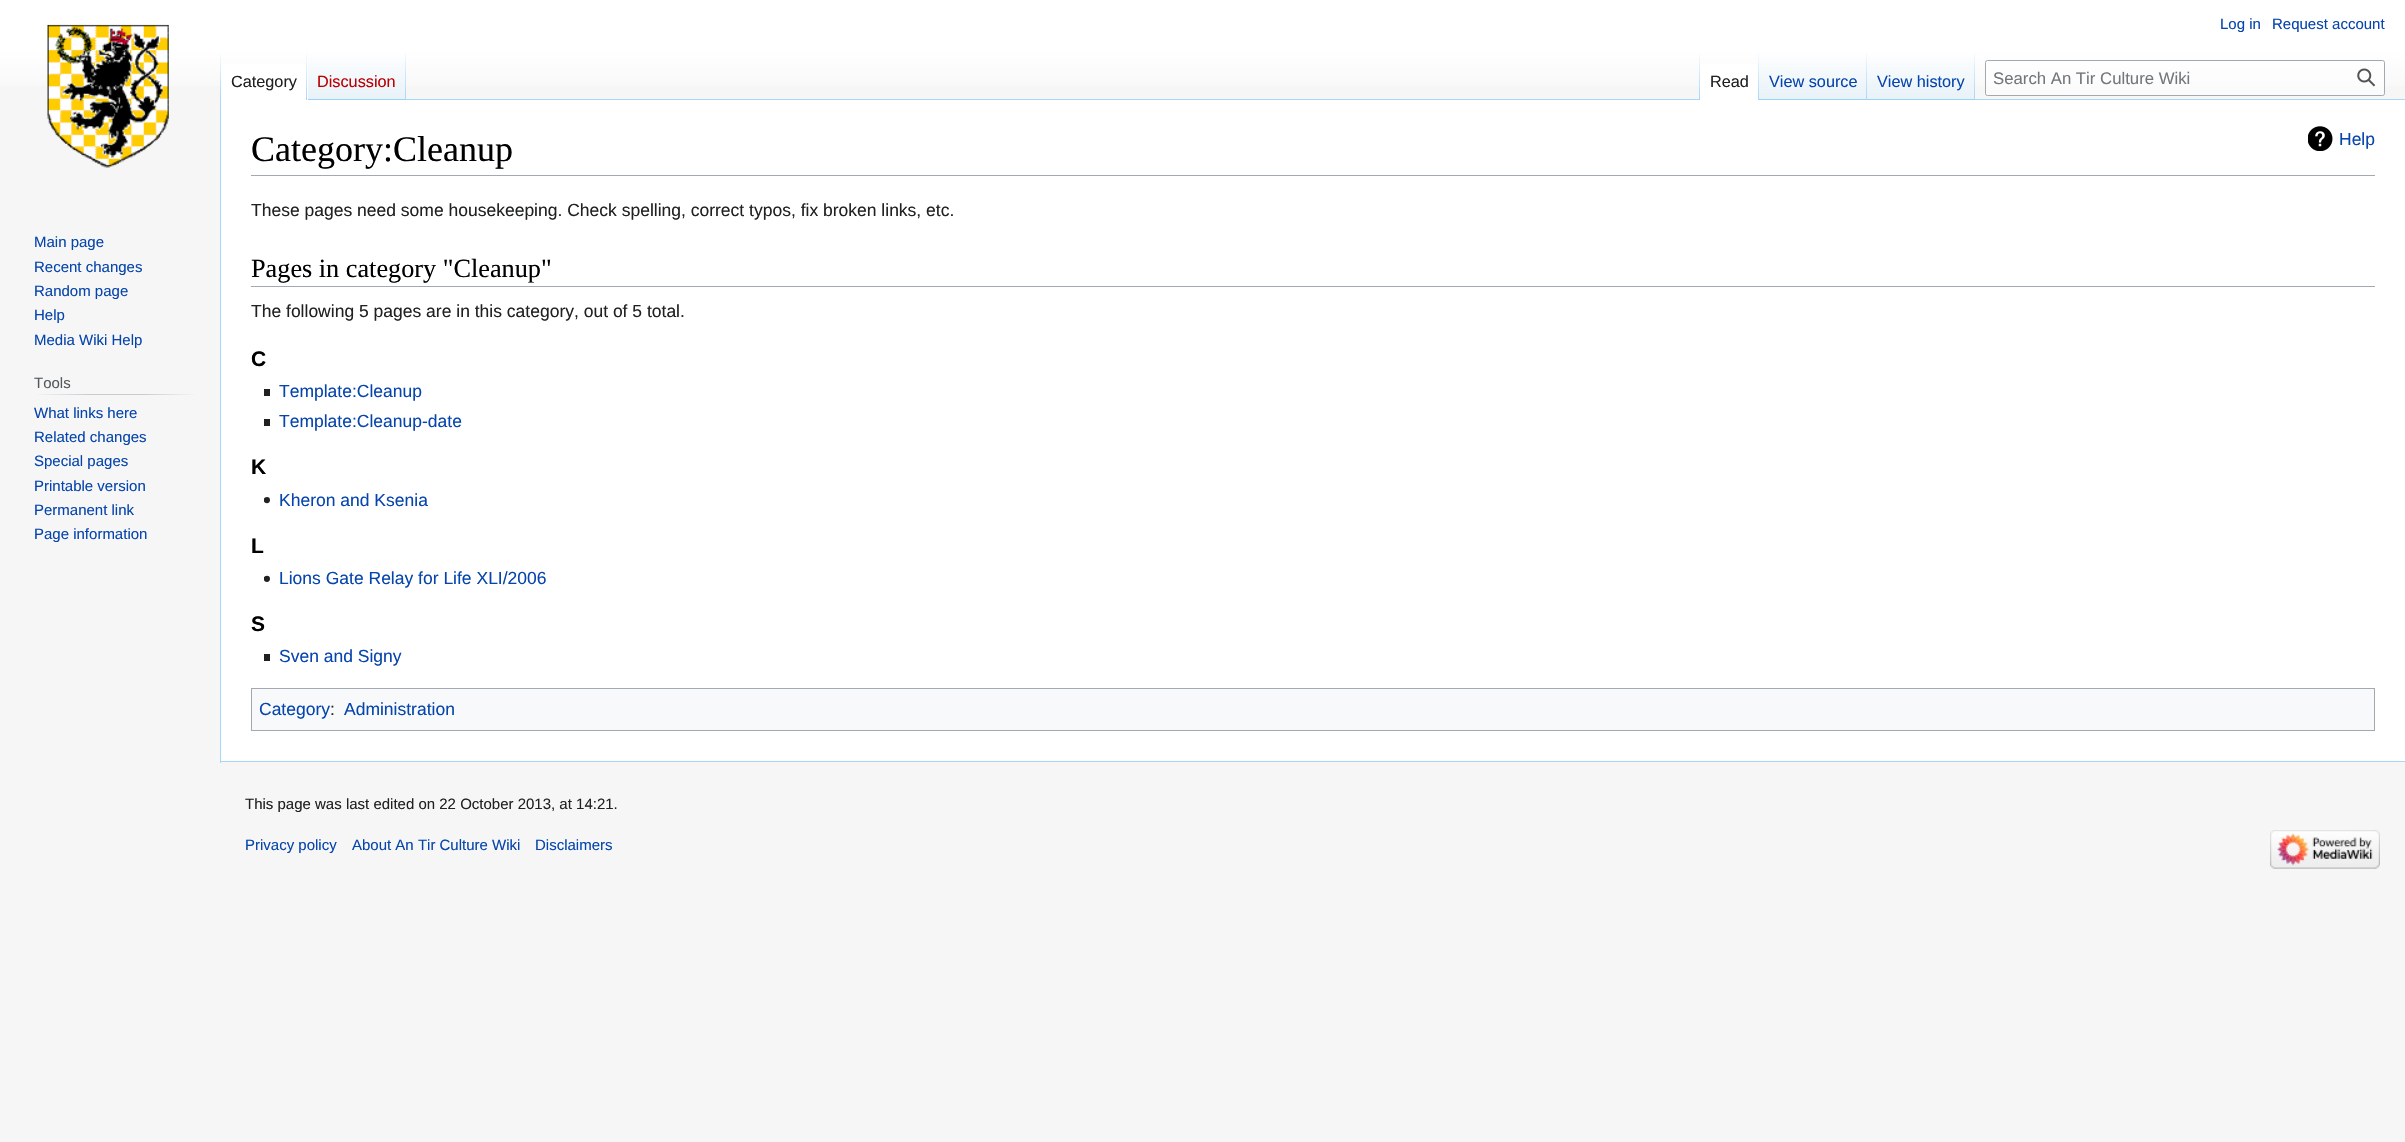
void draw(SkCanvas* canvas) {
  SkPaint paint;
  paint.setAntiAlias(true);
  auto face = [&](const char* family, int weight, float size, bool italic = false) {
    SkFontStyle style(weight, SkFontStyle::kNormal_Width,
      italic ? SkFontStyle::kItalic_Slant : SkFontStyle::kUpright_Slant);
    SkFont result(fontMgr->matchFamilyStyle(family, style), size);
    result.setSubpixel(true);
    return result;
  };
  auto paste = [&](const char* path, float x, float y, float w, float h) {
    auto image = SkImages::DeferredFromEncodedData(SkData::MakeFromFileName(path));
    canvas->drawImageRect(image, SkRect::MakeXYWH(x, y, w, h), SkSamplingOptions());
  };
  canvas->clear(0xfff6f6f6);
  {
    const SkColor colors[] = {0xffffffff, 0xfff6f6f6};
    const float stops[] = {0.5f, 1};
    const SkPoint ends[] = {{1203, 0}, {1203, 100}};
    paint.setShader(SkGradientShader::MakeLinear(ends, colors, stops, 2, SkTileMode::kClamp));
    paint.setAlpha(255);
  }
  canvas->drawRect(SkRect::MakeXYWH(0, 0, 2405, 86), paint);
  paint.setShader(nullptr);
  paint.setColor(0xffa7d7f9);
  canvas->drawRect(SkRect::MakeXYWH(220, 761, 2185, 1), paint);
  canvas->drawRect(SkRect::MakeXYWH(220, 99, 1, 664), paint);
  {
    const SkColor colors[] = {0x00a7d7f9, 0xffa7d7f9};
    const float stops[] = {0, 1};
    const SkPoint ends[] = {{221, 50}, {221, 100}};
    paint.setShader(SkGradientShader::MakeLinear(ends, colors, stops, 2, SkTileMode::kClamp));
    paint.setAlpha(255);
  }
  canvas->drawRect(SkRect::MakeXYWH(220, 50, 1, 50), paint);
  paint.setShader(nullptr);
  paint.setColor(0xffffffff);
  canvas->drawRect(SkRect::MakeXYWH(221, 64, 87, 36), paint);
  {
    const SkColor colors[] = {0xffffffff, 0xffa7d7f9};
    const float stops[] = {0, 1};
    const SkPoint ends[] = {{307, 50}, {307, 100}};
    paint.setShader(SkGradientShader::MakeLinear(ends, colors, stops, 2, SkTileMode::kClamp));
    paint.setAlpha(255);
  }
  canvas->drawRect(SkRect::MakeXYWH(306, 50, 1, 50), paint);
  {
    const SkColor colors[] = {0xff77c1f6, 0xffe8f2f8, 0xffffffff};
    const float stops[] = {0, 0.03f, 1};
    const SkPoint ends[] = {{357, 100}, {357, 50}};
    paint.setShader(SkGradientShader::MakeLinear(ends, colors, stops, 3, SkTileMode::kClamp));
    paint.setAlpha(255);
  }
  canvas->drawRect(SkRect::MakeXYWH(308, 57, 98, 43), paint);
  {
    const SkColor colors[] = {0x00a7d7f9, 0xffa7d7f9};
    const float stops[] = {0, 1};
    const SkPoint ends[] = {{406, 50}, {406, 100}};
    paint.setShader(SkGradientShader::MakeLinear(ends, colors, stops, 2, SkTileMode::kClamp));
    paint.setAlpha(255);
  }
  canvas->drawRect(SkRect::MakeXYWH(405, 50, 1, 50), paint);
  paint.setShader(nullptr);
  paint.setColor(0xffa7d7f9);
  canvas->drawRect(SkRect::MakeXYWH(406, 99, 1999, 1), paint);
  {
    const SkColor colors[] = {0x00a7d7f9, 0xffa7d7f9};
    const float stops[] = {0, 1};
    const SkPoint ends[] = {{1699, 50}, {1699, 100}};
    paint.setShader(SkGradientShader::MakeLinear(ends, colors, stops, 2, SkTileMode::kClamp));
    paint.setAlpha(255);
  }
  canvas->drawRect(SkRect::MakeXYWH(1699, 50, 1, 50), paint);
  paint.setShader(nullptr);
  paint.setColor(0xffffffff);
  canvas->drawRect(SkRect::MakeXYWH(1700, 64, 58, 36), paint);
  {
    const SkColor colors[] = {0xffffffff, 0xffa7d7f9};
    const float stops[] = {0, 1};
    const SkPoint ends[] = {{1758, 50}, {1758, 100}};
    paint.setShader(SkGradientShader::MakeLinear(ends, colors, stops, 2, SkTileMode::kClamp));
    paint.setAlpha(255);
  }
  canvas->drawRect(SkRect::MakeXYWH(1758, 50, 1, 50), paint);
  {
    const SkColor colors[] = {0xff77c1f6, 0xffe8f2f8, 0xffffffff};
    const float stops[] = {0, 0.03f, 1};
    const SkPoint ends[] = {{1813, 100}, {1813, 50}};
    paint.setShader(SkGradientShader::MakeLinear(ends, colors, stops, 3, SkTileMode::kClamp));
    paint.setAlpha(255);
  }
  canvas->drawRect(SkRect::MakeXYWH(1759, 57, 109, 43), paint);
  {
    const SkColor colors[] = {0x00a7d7f9, 0xffa7d7f9};
    const float stops[] = {0, 1};
    const SkPoint ends[] = {{1867, 50}, {1867, 100}};
    paint.setShader(SkGradientShader::MakeLinear(ends, colors, stops, 2, SkTileMode::kClamp));
    paint.setAlpha(255);
  }
  canvas->drawRect(SkRect::MakeXYWH(1866, 50, 1, 50), paint);
  {
    const SkColor colors[] = {0xff77c1f6, 0xffe8f2f8, 0xffffffff};
    const float stops[] = {0, 0.03f, 1};
    const SkPoint ends[] = {{1921, 100}, {1921, 50}};
    paint.setShader(SkGradientShader::MakeLinear(ends, colors, stops, 3, SkTileMode::kClamp));
    paint.setAlpha(255);
  }
  canvas->drawRect(SkRect::MakeXYWH(1868, 57, 107, 43), paint);
  {
    const SkColor colors[] = {0x00a7d7f9, 0xffa7d7f9};
    const float stops[] = {0, 1};
    const SkPoint ends[] = {{1974, 50}, {1974, 100}};
    paint.setShader(SkGradientShader::MakeLinear(ends, colors, stops, 2, SkTileMode::kClamp));
    paint.setAlpha(255);
  }
  canvas->drawRect(SkRect::MakeXYWH(1974, 50, 1, 50), paint);
  paint.setShader(nullptr);
  paint.setColor(0x80ffffff);
  canvas->drawRoundRect(SkRect::MakeXYWH(1985.5f, 60.5f, 399, 35), 2, 2, paint);
  paint.setStroke(true);
  paint.setStrokeWidth(1);
  paint.setColor(0xffa2a9b1);
  canvas->drawRoundRect(SkRect::MakeXYWH(1985.5f, 60.5f, 399, 35), 2, 2, paint);
  paste("img/1.png", 2357, 68, 19, 19);
  paste("img/2.png", 47, 24, 122, 144);
  paint.setStroke(false);
  {
    const SkColor colors[] = {0xfff6f6f6, 0xffc8ccd1, 0xffc8ccd1, 0xfff6f6f6};
    const float stops[] = {0, 0.33f, 0.66f, 1};
    const SkPoint ends[] = {{34, 394}, {198, 394}};
    paint.setShader(SkGradientShader::MakeLinear(ends, colors, stops, 4, SkTileMode::kClamp));
    paint.setAlpha(255);
  }
  canvas->drawRect(SkRect::MakeXYWH(34, 394, 164, 1), paint);
  paint.setShader(nullptr);
  paint.setColor(0xffffffff);
  canvas->drawRect(SkRect::MakeXYWH(221, 100, 2184, 661), paint);
  paint.setColor(0xffa2a9b1);
  canvas->drawRect(SkRect::MakeXYWH(251, 175, 2124, 1), paint);
  paste("img/3.png", 2308, 126, 25, 25);
  {
    const struct { float x, y, w, h; SkColor color; } items[] = {
      {251, 286, 2124, 1, 0xffa2a9b1},
      {264, 389, 6, 7, 0xff202122},
      {264, 419, 6, 7, 0xff202122},
    };
    for (auto [x, y, w, h, color] : items) {
      paint.setColor(color);
      canvas->drawRect(SkRect::MakeXYWH(x, y, w, h), paint);
    }
  }
  paste("img/4.png", 264, 497, 6, 7);
  paste("img/5.png", 264, 575, 6, 7);
  canvas->drawRect(SkRect::MakeXYWH(264, 654, 6, 7), paint);
  paint.setColor(0xfff8f9fa);
  canvas->drawRect(SkRect::MakeXYWH(251.5f, 688.5f, 2123, 42), paint);
  paint.setStroke(true);
  paint.setColor(0xffa2a9b1);
  canvas->drawRect(SkRect::MakeXYWH(251.5f, 688.5f, 2123, 42), paint);
  paste("img/6.png", 2270, 830, 110, 39);
  auto f0 = face("Liberation Sans", 400, 15);
  paint.setStroke(false);
  paint.setColor(0xff0645ad);
  canvas->drawString("Log in", 2220, 29, f0, paint);
  canvas->drawString("Request account", 2272, 29, f0, paint);
  auto f1 = face("Liberation Sans", 400, 16.25f);
  paint.setColor(0xff202122);
  canvas->drawString("Category", 231, 87, f1, paint);
  paint.setColor(0xffba0000);
  canvas->drawString("Discussion", 317, 87, f1, paint);
  paint.setColor(0xff202122);
  canvas->drawString("Read", 1710, 87, f1, paint);
  paint.setColor(0xff0645ad);
  canvas->drawString("View source", 1769, 87, f1, paint);
  canvas->drawString("View history", 1877, 87, f1, paint);
  auto f2 = face("Liberation Sans", 400, 16.75f);
  paint.setColor(0xff72777d);
  canvas->drawString("Search An Tir Culture Wiki", 1993, 84, f2, paint);
  paint.setColor(0xff0645ad);
  {
    const struct { const char* s; float x, y; } items[] = {
      {"Main page", 34, 247},
      {"Recent changes", 34, 272},
      {"Random page", 34, 296},
      {"Help", 34, 320},
      {"Media Wiki Help", 34, 345},
    };
    for (auto [s, x, y] : items) {
      canvas->drawString(s, x, y, f0, paint);
    }
  }
  paint.setColor(0xff54595d);
  canvas->drawString("Tools", 34, 388, f0, paint);
  paint.setColor(0xff0645ad);
  {
    const struct { const char* s; float x, y; } items[] = {
      {"What links here", 34, 418},
      {"Related changes", 34, 442},
      {"Special pages", 34, 466},
      {"Printable version", 34, 491},
      {"Permanent link", 34, 515},
      {"Page information", 34, 539},
    };
    for (auto [s, x, y] : items) {
      canvas->drawString(s, x, y, f0, paint);
    }
  }
  auto f3 = face("Liberation Serif", 400, 36);
  paint.setColor(0xff000000);
  canvas->drawString("Category:Cleanup", 251, 161, f3, paint);
  auto f4 = face("Liberation Sans", 400, 17.5f);
  paint.setColor(0xff0645ad);
  canvas->drawString("Help", 2339, 145, f4, paint);
  paint.setColor(0xff202122);
  canvas->drawString("These pages need some housekeeping. Check spelling, correct typos, fix broken links, etc.", 251, 216, f4, paint);
  auto f5 = face("Liberation Serif", 400, 26.25f);
  paint.setColor(0xff000000);
  canvas->drawString("Pages in category \"Cleanup\"", 251, 277, f5, paint);
  paint.setColor(0xff202122);
  canvas->drawString("The following 5 pages are in this category, out of 5 total.", 251, 317, f4, paint);
  auto f6 = face("Liberation Sans", 700, 21);
  paint.setColor(0xff000000);
  canvas->drawString("C", 251, 366, f6, paint);
  paint.setColor(0xff0645ad);
  canvas->drawString("Template:Cleanup", 279, 397, f4, paint);
  canvas->drawString("Template:Cleanup-date", 279, 427, f4, paint);
  paint.setColor(0xff000000);
  canvas->drawString("K", 251, 474, f6, paint);
  paint.setColor(0xff0645ad);
  canvas->drawString("Kheron and Ksenia", 279, 506, f4, paint);
  paint.setColor(0xff000000);
  canvas->drawString("L", 251, 553, f6, paint);
  paint.setColor(0xff0645ad);
  canvas->drawString("Lions Gate Relay for Life XLI/2006", 279, 584, f4, paint);
  paint.setColor(0xff000000);
  canvas->drawString("S", 251, 631, f6, paint);
  paint.setColor(0xff0645ad);
  canvas->drawString("Sven and Signy", 279, 662, f4, paint);
  canvas->drawString("Category", 259, 715, f4, paint);
  paint.setColor(0xff202122);
  canvas->drawString(":", 330, 715, f4, paint);
  paint.setColor(0xff0645ad);
  canvas->drawString("Administration", 344, 715, f4, paint);
  paint.setColor(0xff202122);
  canvas->drawString("This page was last edited on 22 October 2013, at 14:21.", 245, 809, f0, paint);
  paint.setColor(0xff0645ad);
  {
    const struct { const char* s; float x, y; } items[] = {
      {"Privacy policy", 245, 850},
      {"About An Tir Culture Wiki", 352, 850},
      {"Disclaimers", 535, 850},
    };
    for (auto [s, x, y] : items) {
      canvas->drawString(s, x, y, f0, paint);
    }
  }
}
